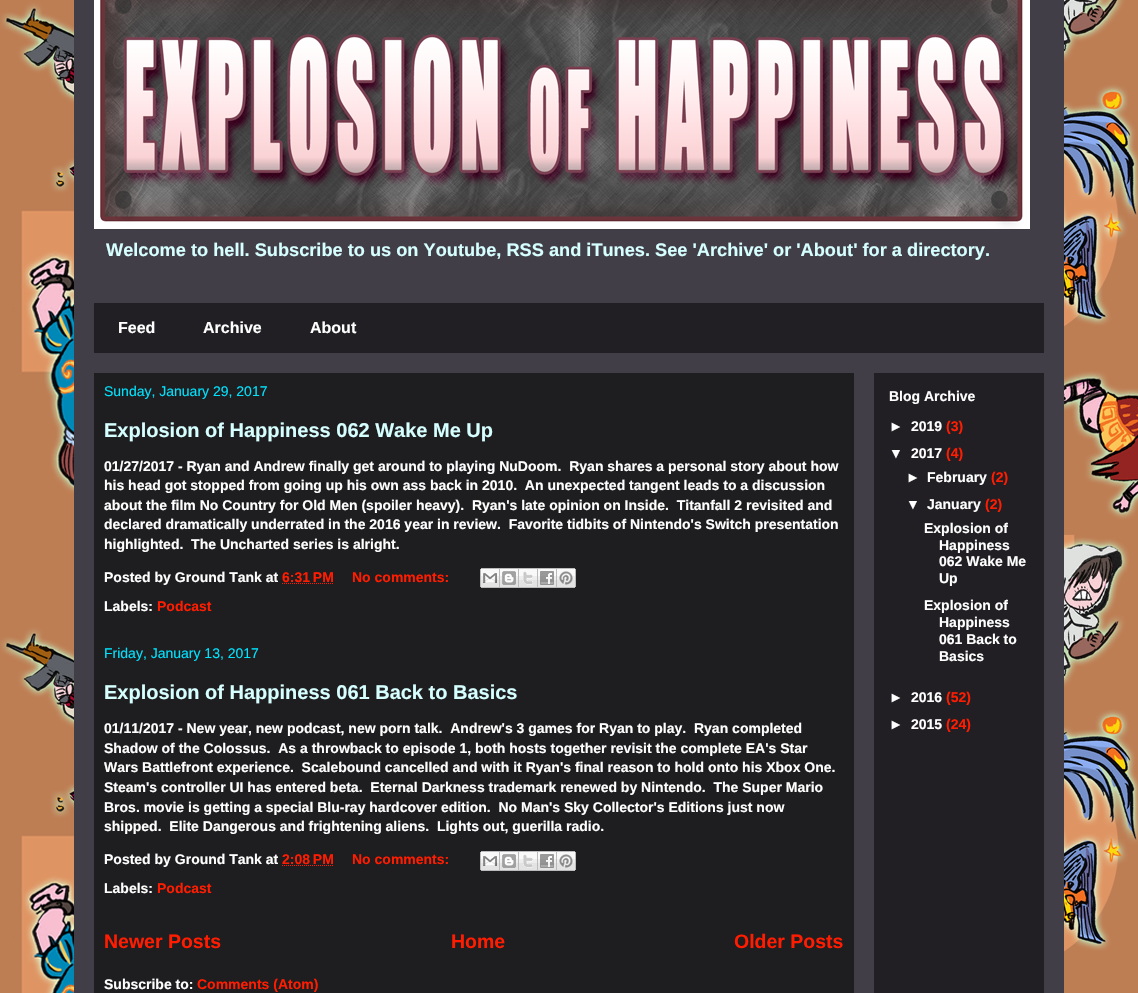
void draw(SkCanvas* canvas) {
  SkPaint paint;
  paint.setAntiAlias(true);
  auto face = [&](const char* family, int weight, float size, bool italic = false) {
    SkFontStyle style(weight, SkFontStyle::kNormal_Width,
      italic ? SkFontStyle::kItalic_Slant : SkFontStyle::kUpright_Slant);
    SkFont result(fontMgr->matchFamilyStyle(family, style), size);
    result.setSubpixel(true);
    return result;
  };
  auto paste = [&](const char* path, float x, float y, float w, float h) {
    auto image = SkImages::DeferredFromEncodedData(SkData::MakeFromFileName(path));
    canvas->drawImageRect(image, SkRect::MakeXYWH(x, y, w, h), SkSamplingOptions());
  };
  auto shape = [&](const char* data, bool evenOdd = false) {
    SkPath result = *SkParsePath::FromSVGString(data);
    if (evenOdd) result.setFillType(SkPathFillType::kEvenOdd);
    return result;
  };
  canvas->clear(0xffffffff);
  paste("img/1.png", 0, 0, 1138, 993);
  paint.setColor(0xff423e47);
  canvas->drawRect(SkRect::MakeXYWH(74, 0, 990, 993), paint);
  paste("img/2.png", 94, 0, 936, 229);
  {
    const struct { float x, y, w, h; SkColor color; } items[] = {
      {94, 303, 950, 50, 0xff211f24},
      {874, 373, 170, 620, 0xff211f24},
      {94, 373, 760, 620, 0xff1e1d1f},
    };
    for (auto [x, y, w, h, color] : items) {
      paint.setColor(color);
      canvas->drawRect(SkRect::MakeXYWH(x, y, w, h), paint);
    }
  }
  paint.setStroke(true);
  paint.setStrokeWidth(1);
  paint.setColor(0xffff1c00);
  paint.setPathEffect(SkDashPathEffect::Make({{1, 1}}, 0));
  canvas->drawPath(shape("M282 583.5H334"), paint);
  paint.setPathEffect(nullptr);
  paste("img/3.png", 480, 568, 20, 20);
  paste("img/4.png", 500, 568, 19, 20);
  paste("img/5.png", 519, 568, 19, 20);
  paste("img/6.png", 538, 568, 19, 20);
  paste("img/7.png", 557, 568, 19, 20);
  paint.setPathEffect(SkDashPathEffect::Make({{1, 1}}, 0));
  canvas->drawPath(shape("M282 865.5H334"), paint);
  paint.setPathEffect(nullptr);
  paste("img/3.png", 480, 851, 20, 20);
  paste("img/4.png", 500, 851, 19, 20);
  paste("img/5.png", 519, 851, 19, 20);
  paste("img/6.png", 538, 851, 19, 20);
  paste("img/7.png", 557, 851, 19, 20);
  auto f0 = face("Liberation Sans", 700, 18.2f);
  paint.setStroke(false);
  paint.setColor(0xffd6ffff);
  canvas->drawString("Welcome to hell. Subscribe to us on Youtube, RSS and iTunes. See 'Archive' or 'About' for a directory.", 106, 256, f0, paint);
  auto f1 = face("Liberation Sans", 700, 16);
  paint.setColor(0xffffffff);
  {
    const struct { const char* s; float x, y; } items[] = {
      {"Feed", 118, 333},
      {"Archive", 203, 333},
      {"About", 310, 333},
    };
    for (auto [s, x, y] : items) {
      canvas->drawString(s, x, y, f1, paint);
    }
  }
  auto f2 = face("Liberation Sans", 400, 14);
  paint.setColor(0xff00e3ff);
  canvas->drawString("Sunday, January 29, 2017", 104, 396, f2, paint);
  auto f3 = face("Liberation Sans", 700, 20);
  paint.setColor(0xffd6ffff);
  canvas->drawString("Explosion of Happiness 062 Wake Me Up", 104, 437, f3, paint);
  auto f4 = face("Liberation Sans", 700, 14);
  paint.setColor(0xffffffff);
  {
    const struct { const char* s; float x, y; } items[] = {
      {"01/27/2017 - Ryan and Andrew finally get around to playing NuDoom.  Ryan shares a personal story about how", 104, 471},
      {"his head got stopped from going up his own ass back in 2010.  An unexpected tangent leads to a discussion", 104, 490},
      {"about the film No Country for Old Men (spoiler heavy).  Ryan's late opinion on Inside.  Titanfall 2 revisited and", 104, 510},
      {"declared dramatically underrated in the 2016 year in review.  Favorite tidbits of Nintendo's Switch presentation", 104, 529},
      {"highlighted.  The Uncharted series is alright.", 104, 549},
      {"Posted by Ground Tank at", 104, 582},
    };
    for (auto [s, x, y] : items) {
      canvas->drawString(s, x, y, f4, paint);
    }
  }
  paint.setColor(0xffff1c00);
  canvas->drawString("6:31 PM", 282, 582, f4, paint);
  canvas->drawString("No comments:", 352, 582, f4, paint);
  paint.setColor(0xffffffff);
  canvas->drawString("Labels:", 104, 611, f4, paint);
  paint.setColor(0xffff1c00);
  canvas->drawString("Podcast", 157, 611, f4, paint);
  paint.setColor(0xff00e3ff);
  canvas->drawString("Friday, January 13, 2017", 104, 658, f2, paint);
  paint.setColor(0xffd6ffff);
  canvas->drawString("Explosion of Happiness 061 Back to Basics", 104, 699, f3, paint);
  paint.setColor(0xffffffff);
  {
    const struct { const char* s; float x, y; } items[] = {
      {"01/11/2017 - New year, new podcast, new porn talk.  Andrew's 3 games for Ryan to play.  Ryan completed", 104, 733},
      {"Shadow of the Colossus.  As a throwback to episode 1, both hosts together revisit the complete EA's Star", 104, 753},
      {"Wars Battlefront experience.  Scalebound cancelled and with it Ryan's final reason to hold onto his Xbox One.", 104, 772},
      {"Steam's controller UI has entered beta.  Eternal Darkness trademark renewed by Nintendo.  The Super Mario", 104, 792},
      {"Bros. movie is getting a special Blu-ray hardcover edition.  No Man's Sky Collector's Editions just now", 104, 812},
      {"shipped.  Elite Dangerous and frightening aliens.  Lights out, guerilla radio.", 104, 831},
      {"Posted by Ground Tank at", 104, 864},
    };
    for (auto [s, x, y] : items) {
      canvas->drawString(s, x, y, f4, paint);
    }
  }
  paint.setColor(0xffff1c00);
  canvas->drawString("2:08 PM", 282, 864, f4, paint);
  canvas->drawString("No comments:", 352, 864, f4, paint);
  paint.setColor(0xffffffff);
  canvas->drawString("Labels:", 104, 893, f4, paint);
  paint.setColor(0xffff1c00);
  canvas->drawString("Podcast", 157, 893, f4, paint);
  auto f5 = face("Liberation Sans", 700, 19.5f);
  {
    const struct { const char* s; float x, y; } items[] = {
      {"Newer Posts", 104, 948},
      {"Home", 451, 948},
      {"Older Posts", 734, 948},
    };
    for (auto [s, x, y] : items) {
      canvas->drawString(s, x, y, f5, paint);
    }
  }
  paint.setColor(0xffffffff);
  canvas->drawString("Subscribe to:", 104, 989, f4, paint);
  paint.setColor(0xffff1c00);
  canvas->drawString("Comments (Atom)", 197, 989, f4, paint);
  paint.setColor(0xffffffff);
  {
    const struct { const char* s; float x, y; } items[] = {
      {"Blog Archive", 889, 401},
      {"►", 889, 431},
      {"2019", 911, 431},
    };
    for (auto [s, x, y] : items) {
      canvas->drawString(s, x, y, f4, paint);
    }
  }
  paint.setColor(0xffff1c00);
  canvas->drawString("(3)", 946, 431, f4, paint);
  paint.setColor(0xffffffff);
  canvas->drawString("▼", 889, 458, f4, paint);
  canvas->drawString("2017", 911, 458, f4, paint);
  paint.setColor(0xffff1c00);
  canvas->drawString("(4)", 946, 458, f4, paint);
  paint.setColor(0xffffffff);
  canvas->drawString("►", 906, 482, f4, paint);
  canvas->drawString("February", 927, 482, f4, paint);
  paint.setColor(0xffff1c00);
  canvas->drawString("(2)", 991, 482, f4, paint);
  paint.setColor(0xffffffff);
  canvas->drawString("▼", 906, 509, f4, paint);
  canvas->drawString("January", 927, 509, f4, paint);
  paint.setColor(0xffff1c00);
  canvas->drawString("(2)", 985, 509, f4, paint);
  paint.setColor(0xffffffff);
  {
    const struct { const char* s; float x, y; } items[] = {
      {"Explosion of", 924, 533},
      {"Happiness", 939, 550},
      {"062 Wake Me", 939, 566},
      {"Up", 939, 583},
      {"Explosion of", 924, 610},
      {"Happiness", 939, 627},
      {"061 Back to", 939, 644},
      {"Basics", 939, 661},
      {"►", 889, 702},
      {"2016", 911, 702},
    };
    for (auto [s, x, y] : items) {
      canvas->drawString(s, x, y, f4, paint);
    }
  }
  paint.setColor(0xffff1c00);
  canvas->drawString("(52)", 946, 702, f4, paint);
  paint.setColor(0xffffffff);
  canvas->drawString("►", 889, 729, f4, paint);
  canvas->drawString("2015", 911, 729, f4, paint);
  paint.setColor(0xffff1c00);
  canvas->drawString("(24)", 946, 729, f4, paint);
}
